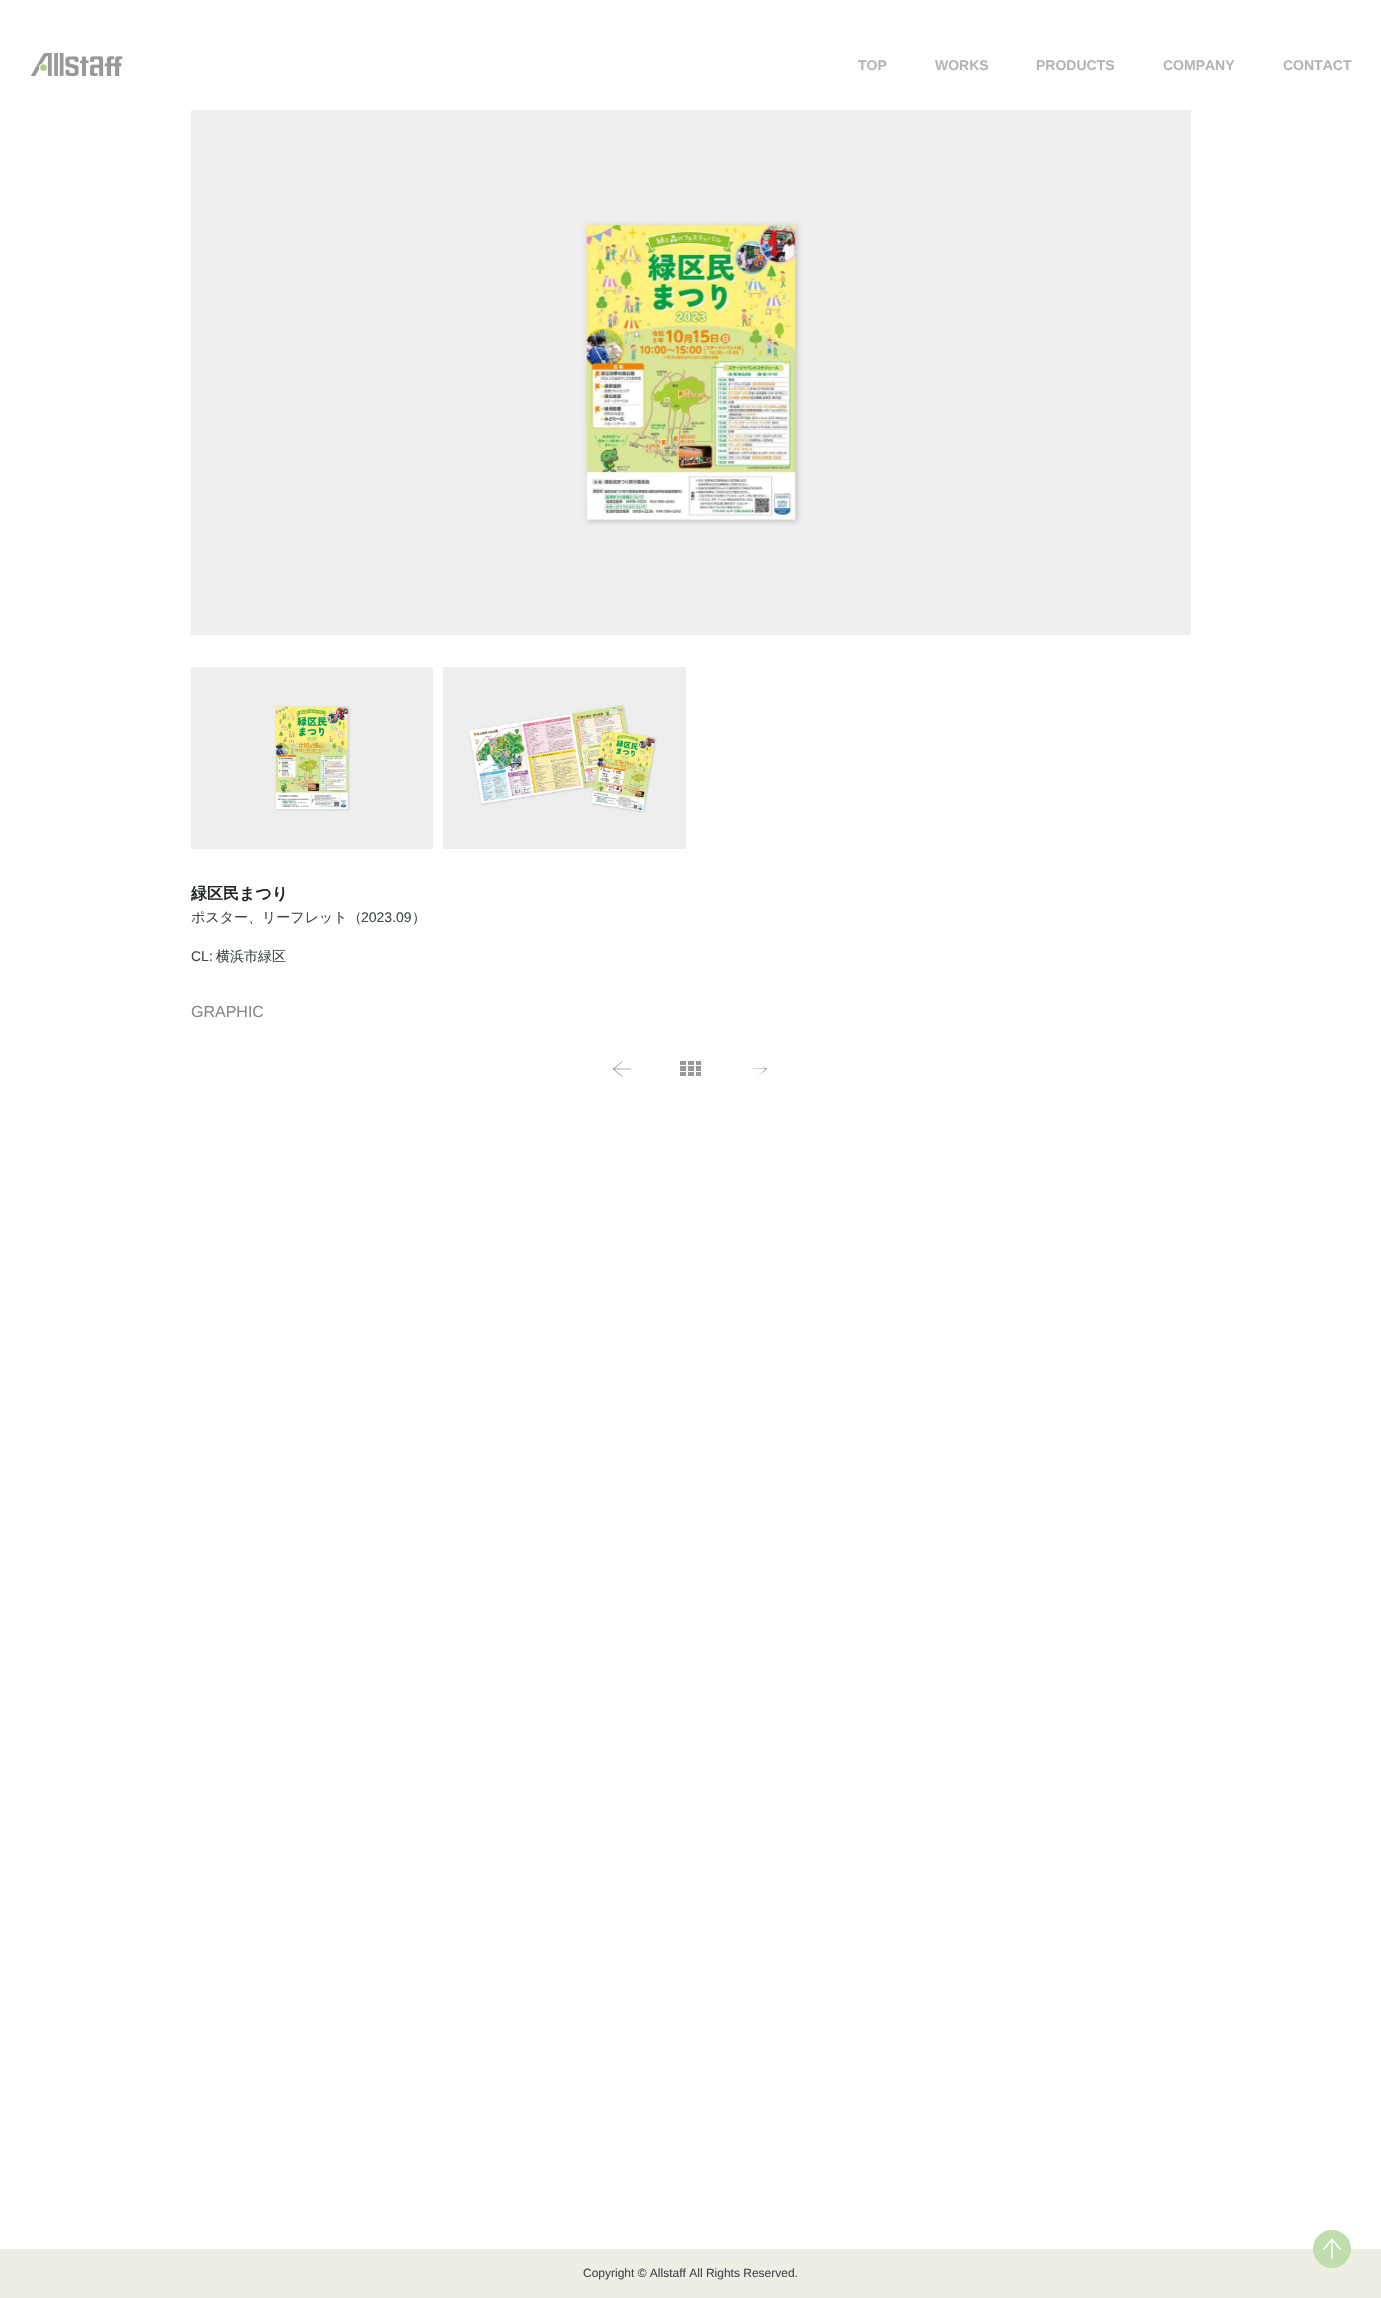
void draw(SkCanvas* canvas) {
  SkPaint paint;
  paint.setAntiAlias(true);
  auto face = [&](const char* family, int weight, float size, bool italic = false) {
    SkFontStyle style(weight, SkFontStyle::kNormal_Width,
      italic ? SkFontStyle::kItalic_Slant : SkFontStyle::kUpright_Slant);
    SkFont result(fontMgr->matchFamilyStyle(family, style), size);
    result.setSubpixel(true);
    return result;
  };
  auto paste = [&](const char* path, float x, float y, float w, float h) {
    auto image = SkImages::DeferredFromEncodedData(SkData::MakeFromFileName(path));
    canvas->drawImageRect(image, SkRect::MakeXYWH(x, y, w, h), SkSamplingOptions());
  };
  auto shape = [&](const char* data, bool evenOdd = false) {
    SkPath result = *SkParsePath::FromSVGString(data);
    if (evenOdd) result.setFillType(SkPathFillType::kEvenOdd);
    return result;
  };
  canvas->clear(0xffffffff);
  paste("img/1.png", 30, 53, 93, 23);
  paint.setColor(0xffefefef);
  canvas->drawRect(SkRect::MakeXYWH(191, 110, 1000, 525), paint);
  paste("img/2.png", 581, 219, 221, 307);
  paste("img/3.png", 191, 667, 242, 182);
  paste("img/4.png", 443, 667, 243, 182);
  paste("img/5.png", 613, 1061, 18, 16);
  paste("img/6.png", 680, 1061, 21, 15);
  paint.setColor(0xff666666);
  canvas->drawPath(shape("M767 1069L757.5 1061.5L766 1068.5L749 1069H766L757.5 1076.5Z"), paint);
  paint.setColor(0xffeeeee5);
  canvas->drawRect(SkRect::MakeXYWH(0, 2249, 1381, 49), paint);
  paste("img/7.png", 1313, 2230, 38, 38);
  auto f0 = face("Liberation Sans", 700, 14);
  paint.setColor(0xffb4b4b4);
  {
    const struct { const char* s; float x, y; } items[] = {
      {"TOP", 858, 70},
      {"WORKS", 935, 70},
      {"PRODUCTS", 1036, 70},
      {"COMPANY", 1163, 70},
      {"CONTACT", 1283, 70},
    };
    for (auto [s, x, y] : items) {
      canvas->drawString(s, x, y, f0, paint);
    }
  }
  auto f1 = face("WenQuanYi Zen Hei", 700, 16);
  paint.setColor(0xff202426);
  canvas->drawString("緑区民まつり", 191, 899, f1, paint);
  auto f2 = face("WenQuanYi Zen Hei", 500, 14);
  paint.setColor(0xff40474a);
  canvas->drawString("ポスター、リーフレット（", 191, 922, f2, paint);
  auto f3 = face("Liberation Sans", 400, 14);
  canvas->drawString("2023.09", 361, 922, f3, paint);
  canvas->drawString("）", 412, 922, f2, paint);
  canvas->drawString("CL:", 191, 961, f3, paint);
  canvas->drawString("横浜市緑区", 216, 961, f2, paint);
  auto f4 = face("Liberation Sans", 400, 16);
  paint.setColor(0xff888888);
  canvas->drawString("GRAPHIC", 191, 1017, f4, paint);
  auto f5 = face("Liberation Sans", 400, 12);
  paint.setColor(0xff40474a);
  canvas->drawString("Copyright © Allstaff All Rights Reserved.", 583, 2277, f5, paint);
}
